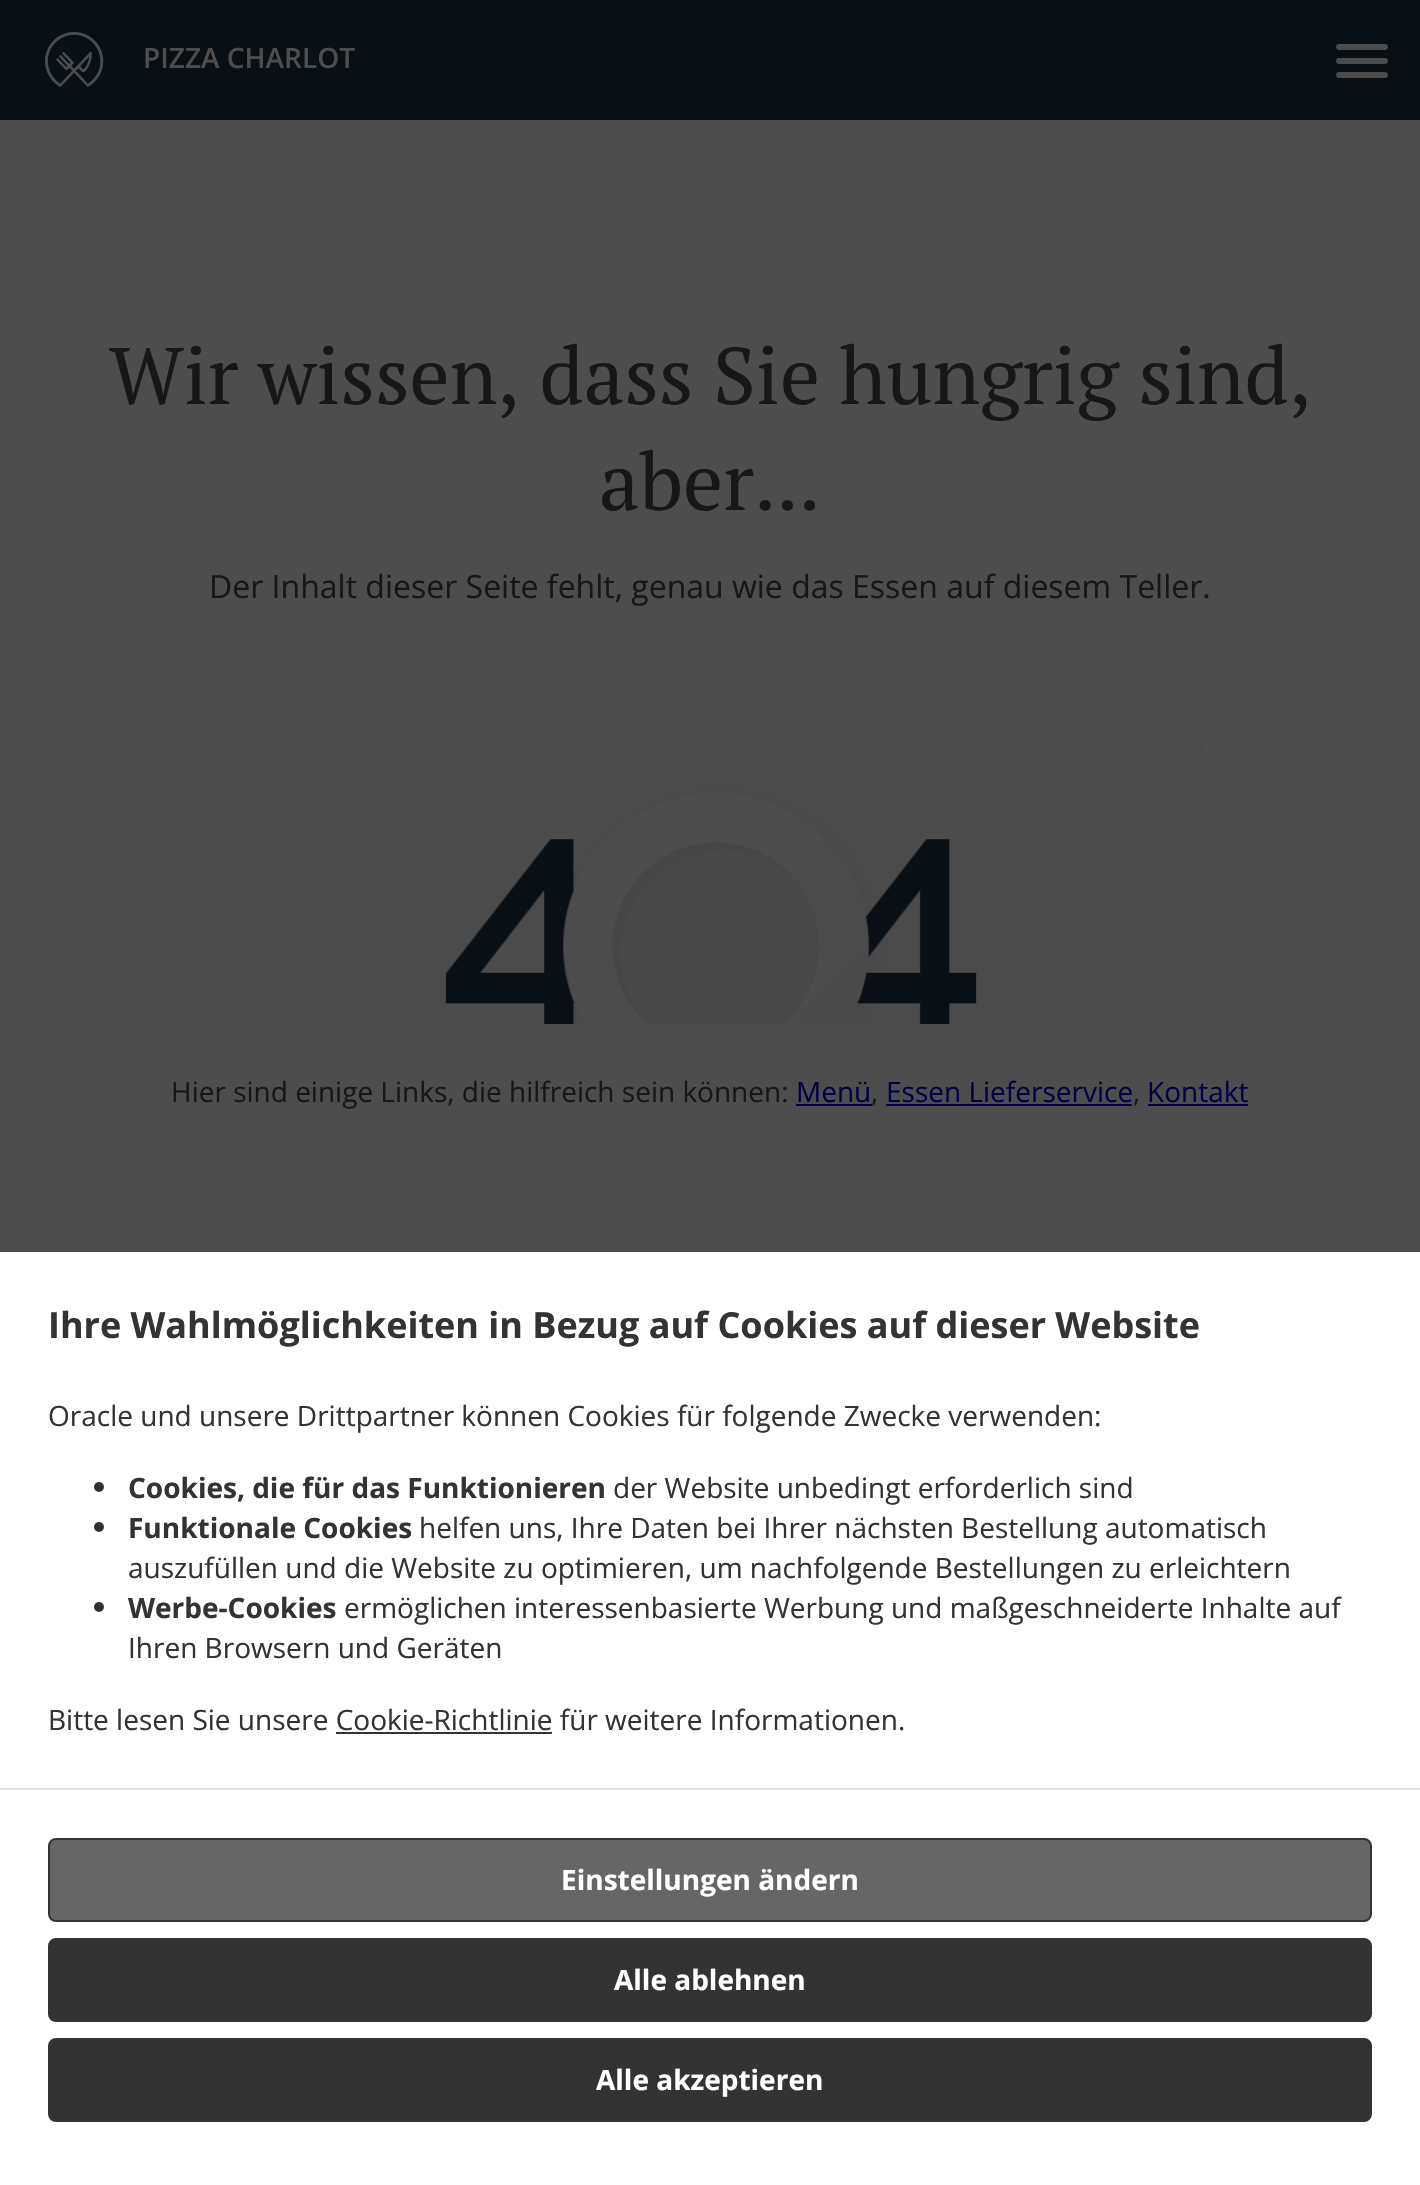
void draw(SkCanvas* canvas) {
  SkPaint paint;
  paint.setAntiAlias(true);
  auto face = [&](const char* family, int weight, float size, bool italic = false) {
    SkFontStyle style(weight, SkFontStyle::kNormal_Width,
      italic ? SkFontStyle::kItalic_Slant : SkFontStyle::kUpright_Slant);
    SkFont result(fontMgr->matchFamilyStyle(family, style), size);
    result.setSubpixel(true);
    return result;
  };
  auto paste = [&](const char* path, float x, float y, float w, float h) {
    auto image = SkImages::DeferredFromEncodedData(SkData::MakeFromFileName(path));
    canvas->drawImageRect(image, SkRect::MakeXYWH(x, y, w, h), SkSamplingOptions());
  };
  canvas->clear(0xff4d4d4d);
  paint.setColor(0xff091015);
  canvas->drawRect(SkRect::MakeXYWH(0, 0, 1420, 120), paint);
  paste("img/1.png", 45, 32, 59, 56);
  paste("img/2.png", 1336, 44, 52, 34);
  paste("img/3.png", 214, 736, 994, 288);
  {
    const struct { float x, y, w, h; SkColor color; } items[] = {
      {796, 1104, 76, 2, 0xff000047},
      {886, 1104, 246, 2, 0xff000047},
      {1148, 1104, 100, 2, 0xff000047},
      {0, 1252, 1420, 933, 0xffffffff},
    };
    for (auto [x, y, w, h, color] : items) {
      paint.setColor(color);
      canvas->drawRect(SkRect::MakeXYWH(x, y, w, h), paint);
    }
  }
  paint.setColor(0xff333333);
  canvas->drawCircle(99, 1487, 5, paint);
  canvas->drawCircle(99, 1527, 5, paint);
  canvas->drawCircle(99, 1607, 5, paint);
  canvas->drawRect(SkRect::MakeXYWH(336, 1732, 216, 2), paint);
  paint.setColor(0xffe1e1e1);
  canvas->drawRect(SkRect::MakeXYWH(0, 1788, 1420, 2), paint);
  paint.setColor(0xff666666);
  canvas->drawRoundRect(SkRect::MakeXYWH(49, 1839, 1322, 82), 7, 7, paint);
  paint.setStroke(true);
  paint.setStrokeWidth(2);
  paint.setColor(0xff333333);
  canvas->drawRoundRect(SkRect::MakeXYWH(49, 1839, 1322, 82), 7, 7, paint);
  paint.setStroke(false);
  canvas->drawRoundRect(SkRect::MakeXYWH(49, 1939, 1322, 82), 7, 7, paint);
  paint.setStroke(true);
  canvas->drawRoundRect(SkRect::MakeXYWH(49, 1939, 1322, 82), 7, 7, paint);
  paint.setStroke(false);
  canvas->drawRoundRect(SkRect::MakeXYWH(49, 2039, 1322, 82), 7, 7, paint);
  paint.setStroke(true);
  canvas->drawRoundRect(SkRect::MakeXYWH(49, 2039, 1322, 82), 7, 7, paint);
  auto f0 = face("Open Sans", 600, 28);
  paint.setStroke(false);
  paint.setColor(0xff4d4d4d);
  canvas->drawString("PIZZA CHARLOT", 143, 68, f0, paint);
  auto f1 = face("PT Serif", 400, 80);
  paint.setColor(0xff171717);
  canvas->drawString("Wir wissen, dass Sie hungrig sind,", 109, 404, f1, paint);
  canvas->drawString("aber...", 599, 510, f1, paint);
  auto f2 = face("Open Sans", 400, 32);
  canvas->drawString("Der Inhalt dieser Seite fehlt, genau wie das Essen auf diesem Teller.", 209, 598, f2, paint);
  auto f3 = face("Open Sans", 400, 28);
  canvas->drawString("Hier sind einige Links, die hilfreich sein können:", 171, 1102, f3, paint);
  paint.setColor(0xff000047);
  canvas->drawString("Menü", 796, 1102, f3, paint);
  paint.setColor(0xff171717);
  canvas->drawString(",", 871, 1102, f3, paint);
  paint.setColor(0xff000047);
  canvas->drawString("Essen Lieferservice", 886, 1102, f3, paint);
  paint.setColor(0xff171717);
  canvas->drawString(",", 1133, 1102, f3, paint);
  paint.setColor(0xff000047);
  canvas->drawString("Kontakt", 1147, 1102, f3, paint);
  auto f4 = face("Open Sans", 700, 36);
  paint.setColor(0xff333333);
  canvas->drawString("Ihre Wahlmöglichkeiten in Bezug auf Cookies auf dieser Website", 48, 1338, f4, paint);
  canvas->drawString("Oracle und unsere Drittpartner können Cookies für folgende Zwecke verwenden:", 48, 1426, f3, paint);
  auto f5 = face("Open Sans", 700, 28);
  canvas->drawString("Cookies, die für das Funktionieren", 128, 1498, f5, paint);
  canvas->drawString("der Website unbedingt erforderlich sind", 613, 1498, f3, paint);
  canvas->drawString("Funktionale Cookies", 128, 1538, f5, paint);
  canvas->drawString("helfen uns, Ihre Daten bei Ihrer nächsten Bestellung automatisch", 419, 1538, f3, paint);
  canvas->drawString("auszufüllen und die Website zu optimieren, um nachfolgende Bestellungen zu erleichtern", 128, 1578, f3, paint);
  canvas->drawString("Werbe-Cookies", 128, 1618, f5, paint);
  {
    const struct { const char* s; float x, y; } items[] = {
      {"ermöglichen interessenbasierte Werbung und maßgeschneiderte Inhalte auf", 344, 1618},
      {"Ihren Browsern und Geräten", 128, 1658},
      {"Bitte lesen Sie unsere Cookie-Richtlinie für weitere Informationen.", 48, 1730},
    };
    for (auto [s, x, y] : items) {
      canvas->drawString(s, x, y, f3, paint);
    }
  }
  paint.setColor(0xffffffff);
  {
    const struct { const char* s; float x, y; } items[] = {
      {"Einstellungen ändern", 561, 1890},
      {"Alle ablehnen", 614, 1990},
      {"Alle akzeptieren", 596, 2090},
    };
    for (auto [s, x, y] : items) {
      canvas->drawString(s, x, y, f5, paint);
    }
  }
}
